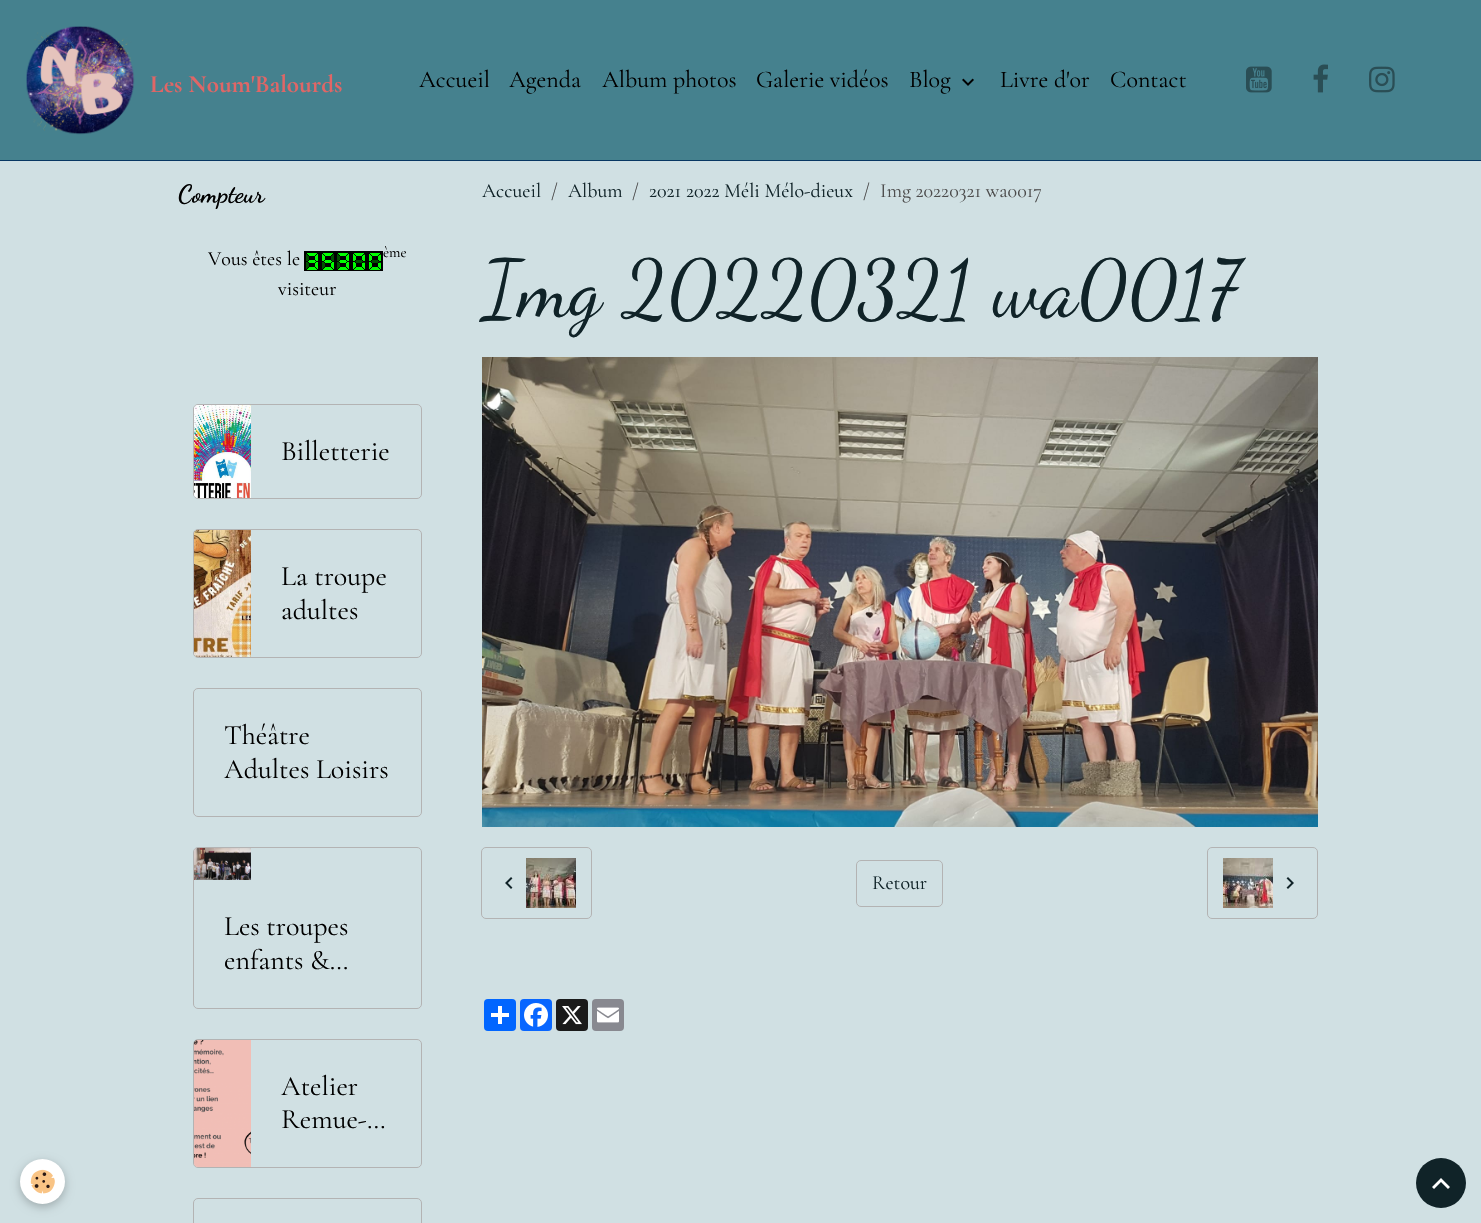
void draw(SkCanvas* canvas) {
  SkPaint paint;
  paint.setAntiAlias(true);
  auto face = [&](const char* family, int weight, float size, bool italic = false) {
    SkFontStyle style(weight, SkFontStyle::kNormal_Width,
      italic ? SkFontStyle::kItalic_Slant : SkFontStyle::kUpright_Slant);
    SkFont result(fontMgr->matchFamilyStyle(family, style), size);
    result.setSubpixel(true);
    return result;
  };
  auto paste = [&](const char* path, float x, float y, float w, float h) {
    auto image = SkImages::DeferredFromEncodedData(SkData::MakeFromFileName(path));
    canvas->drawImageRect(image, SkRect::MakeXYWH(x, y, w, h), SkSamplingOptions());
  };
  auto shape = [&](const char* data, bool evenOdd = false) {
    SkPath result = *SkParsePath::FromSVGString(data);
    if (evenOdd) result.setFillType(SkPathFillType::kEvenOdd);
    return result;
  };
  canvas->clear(0xffd0e0e3);
  paint.setColor(0xff45818e);
  canvas->drawRect(SkRect::MakeXYWH(0, 0, 1481, 160), paint);
  paint.setColor(0xff073763);
  canvas->drawRect(SkRect::MakeXYWH(0, 160, 1481, 1), paint);
  paste("img/1.png", 26, 26, 109, 109);
  paste("img/2.png", 962, 78, 12, 8);
  paste("img/3.png", 1246, 66, 26, 27);
  paste("img/4.png", 1313, 64, 15, 29);
  paste("img/5.png", 1369, 66, 26, 27);
  paste("img/6.png", 304, 251, 16, 20);
  paste("img/7.png", 320, 251, 15, 20);
  paste("img/6.png", 335, 251, 16, 20);
  paste("img/8.png", 351, 251, 16, 20);
  paste("img/8.png", 367, 251, 16, 20);
  paint.setStroke(true);
  paint.setStrokeWidth(1);
  paint.setColor(0xffb3b3b3);
  canvas->drawRoundRect(SkRect::MakeXYWH(193.5f, 404.5f, 228, 94), 4.5f, 4.5f, paint);
  paste("img/9.png", 194, 405, 57, 93);
  canvas->drawRoundRect(SkRect::MakeXYWH(193.5f, 529.5f, 228, 128), 4.5f, 4.5f, paint);
  paste("img/10.png", 194, 530, 57, 127);
  canvas->drawRoundRect(SkRect::MakeXYWH(193.5f, 688.5f, 228, 128), 4.5f, 4.5f, paint);
  canvas->drawRoundRect(SkRect::MakeXYWH(193.5f, 847.5f, 228, 161), 4.5f, 4.5f, paint);
  paste("img/11.png", 194, 848, 57, 32);
  canvas->drawRoundRect(SkRect::MakeXYWH(193.5f, 1039.5f, 228, 128), 4.5f, 4.5f, paint);
  paste("img/12.png", 194, 1040, 57, 127);
  canvas->drawRoundRect(SkRect::MakeXYWH(193.5f, 1198.5f, 228, 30), 4.5f, 4.5f, paint);
  paste("img/13.png", 482, 357, 836, 470);
  canvas->drawRoundRect(SkRect::MakeXYWH(481.5f, 847.5f, 110, 71), 4.5f, 4.5f, paint);
  paste("img/14.png", 505, 877, 8, 12);
  paste("img/15.png", 526, 858, 50, 50);
  canvas->drawRoundRect(SkRect::MakeXYWH(856.5f, 860.5f, 86, 46), 4.5f, 4.5f, paint);
  canvas->drawRoundRect(SkRect::MakeXYWH(1207.5f, 847.5f, 110, 71), 4.5f, 4.5f, paint);
  paste("img/16.png", 1223, 858, 50, 50);
  paste("img/17.png", 1286, 877, 8, 12);
  paint.setStroke(false);
  paint.setColor(0xff0166ff);
  canvas->drawRoundRect(SkRect::MakeXYWH(484, 999, 32, 32), 4, 4, paint);
  paint.setColor(0xffffffff);
  canvas->drawRect(SkRect::MakeXYWH(498, 1006, 4, 18), paint);
  canvas->drawRect(SkRect::MakeXYWH(491, 1013, 18, 4), paint);
  paint.setColor(0xff0866ff);
  canvas->drawRoundRect(SkRect::MakeXYWH(520, 999, 32, 32), 4, 4, paint);
  paste("img/18.png", 524, 1003, 24, 24);
  paint.setColor(0xff1a1a1a);
  canvas->drawRoundRect(SkRect::MakeXYWH(556, 999, 32, 32), 4, 4, paint);
  paste("img/19.png", 562, 1006, 20, 19);
  paint.setColor(0xff888990);
  canvas->drawRoundRect(SkRect::MakeXYWH(592, 999, 32, 32), 4, 4, paint);
  paste("img/20.png", 597, 1007, 22, 16);
  paint.setColor(0x3d000000);
  paint.setMaskFilter(SkMaskFilter::MakeBlur(kNormal_SkBlurStyle, 5));
  canvas->drawRoundRect(SkRect::MakeXYWH(20, 1162, 45, 45), 22.5f, 22.5f, paint);
  paint.setMaskFilter(nullptr);
  paint.setColor(0xffffffff);
  canvas->drawCircle(42.5f, 1181.5f, 22.5f, paint);
  paste("img/21.png", 30, 1169, 25, 25);
  paint.setColor(0xff102328);
  canvas->drawCircle(1441, 1183, 25, paint);
  paint.setColor(0xffffffff);
  canvas->drawPath(shape("M1441 1178L1450 1187L1448 1189L1441 1182L1434 1189L1432 1187Z"), paint);
  auto f0 = face("Cormorant Garamond", 700, 25);
  paint.setColor(0xffe06666);
  canvas->drawString("Les Noum'Balourds", 150, 92, f0, paint);
  auto f1 = face("Cormorant Garamond", 400, 24);
  paint.setColor(0xff000000);
  {
    const struct { const char* s; float x, y; } items[] = {
      {"Accueil", 419, 87},
      {"Agenda", 509, 87},
      {"Album photos", 602, 87},
      {"Galerie vidéos", 756, 87},
      {"Blog", 909, 87},
      {"Livre d'or", 1000, 87},
      {"Contact", 1110, 87},
    };
    for (auto [s, x, y] : items) {
      canvas->drawString(s, x, y, f1, paint);
    }
  }
  auto f2 = face("Dancing Script", 700, 25);
  canvas->drawString("Compteur", 178, 202, f2, paint);
  auto f3 = face("Cormorant Garamond", 400, 20);
  canvas->drawString("Vous êtes le", 208, 265, f3, paint);
  auto f4 = face("Cormorant Garamond", 400, 15);
  canvas->drawString("ème", 383, 257, f4, paint);
  canvas->drawString("visiteur", 278, 295, f3, paint);
  auto f5 = face("Cormorant Garamond", 400, 28);
  {
    const struct { const char* s; float x, y; } items[] = {
      {"Billetterie", 281, 460},
      {"La troupe", 281, 585},
      {"adultes", 281, 619},
      {"Théâtre", 224, 744},
      {"Adultes Loisirs", 224, 778},
      {"Les troupes", 224, 935},
      {"enfants &…", 224, 969},
      {"Atelier", 281, 1095},
      {"Remue-…", 281, 1128},
    };
    for (auto [s, x, y] : items) {
      canvas->drawString(s, x, y, f5, paint);
    }
  }
  paint.setColor(0xff102328);
  canvas->drawString("Accueil", 482, 197, f3, paint);
  paint.setColor(0xff4d4d4d);
  canvas->drawString("/", 551, 197, f3, paint);
  paint.setColor(0xff102328);
  canvas->drawString("Album", 568, 197, f3, paint);
  paint.setColor(0xff4d4d4d);
  canvas->drawString("/", 632, 197, f3, paint);
  paint.setColor(0xff102328);
  canvas->drawString("2021 2022 Méli Mélo-dieux", 649, 197, f3, paint);
  paint.setColor(0xff4d4d4d);
  canvas->drawString("/", 863, 197, f3, paint);
  canvas->drawString("Img 20220321 wa0017", 880, 197, f3, paint);
  auto f6 = face("Dancing Script", 400, 80);
  paint.setColor(0xff102328);
  canvas->drawString("Img 20220321 wa0017", 482, 315, f6, paint);
  canvas->drawString("Retour", 872, 889, f3, paint);
}
